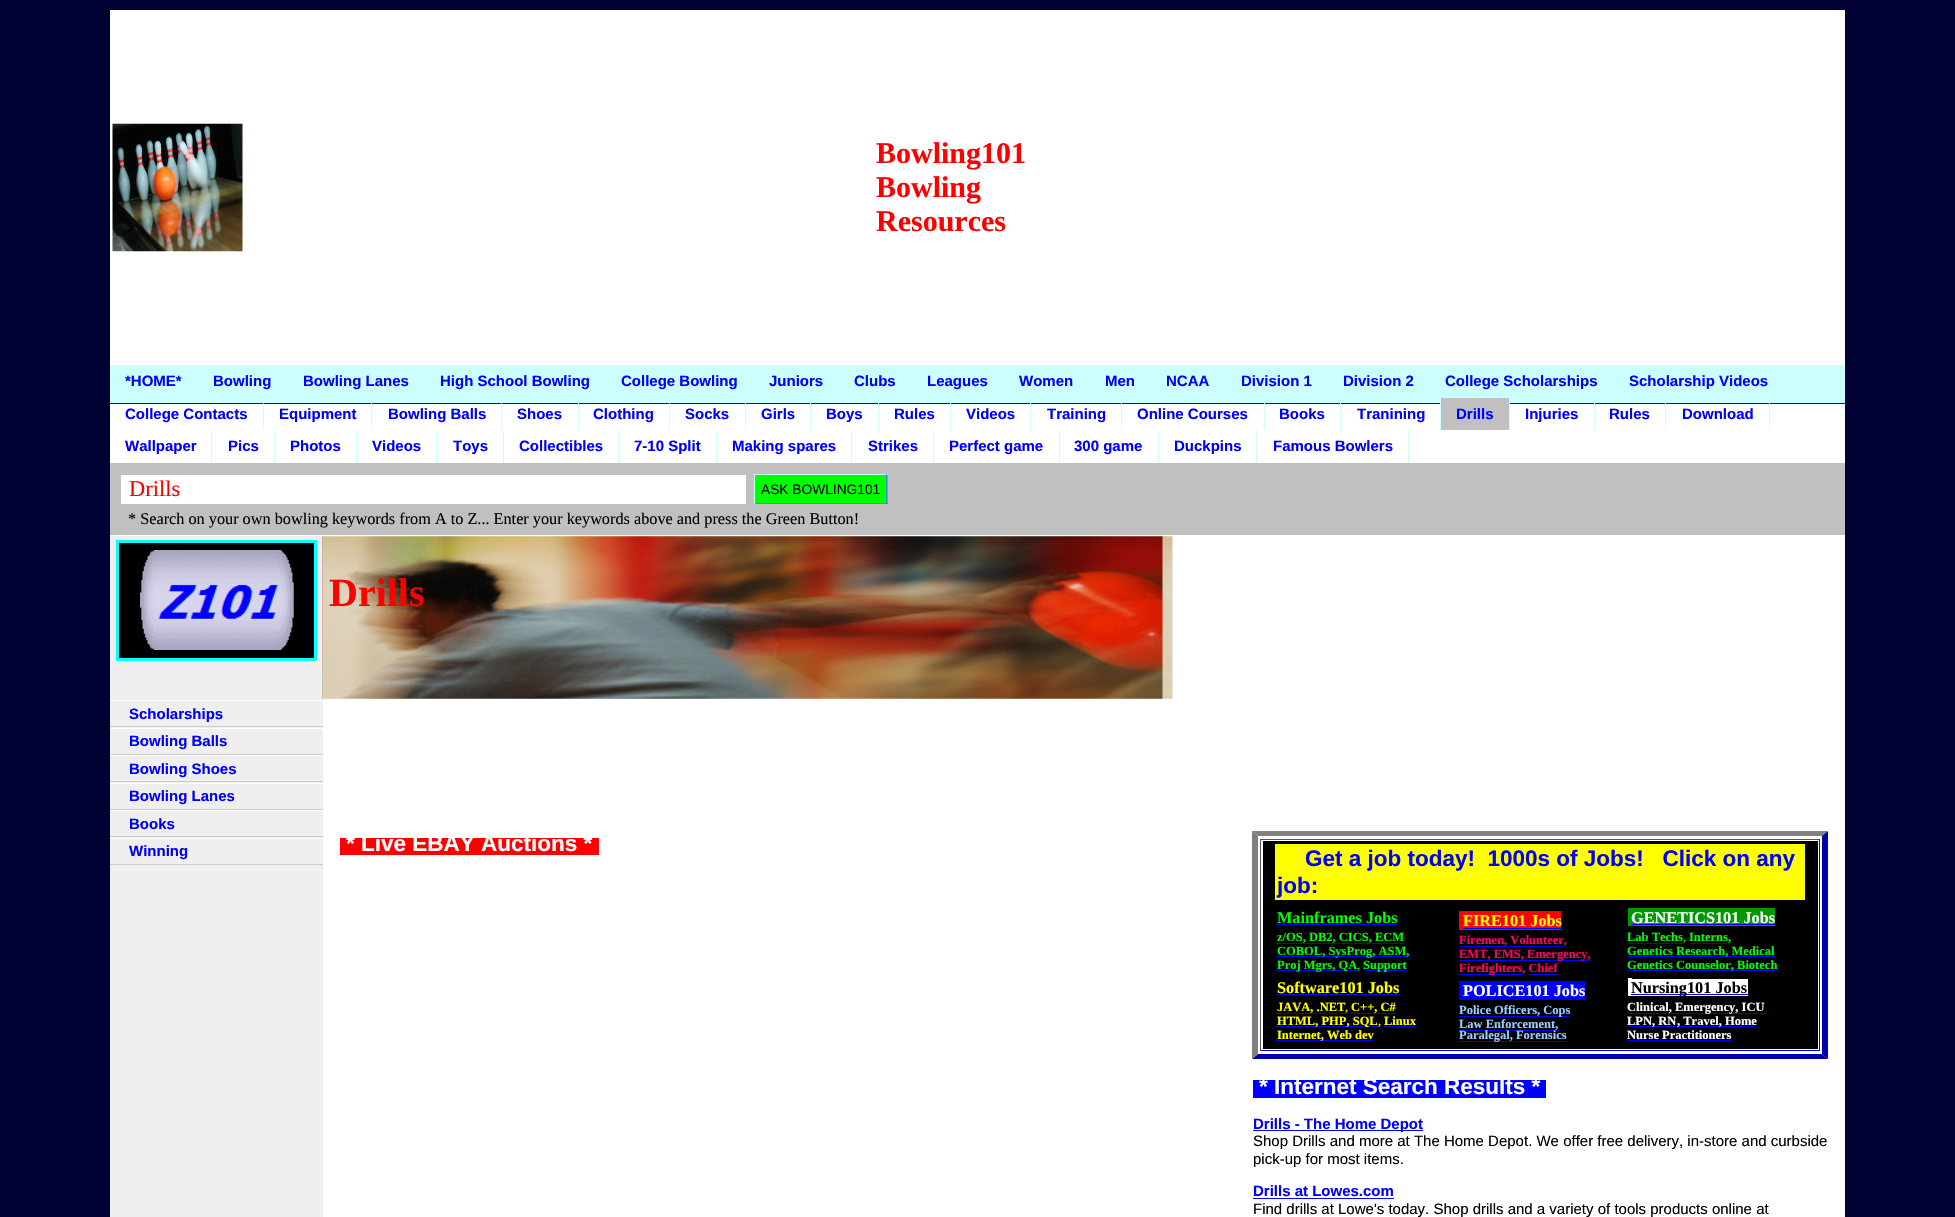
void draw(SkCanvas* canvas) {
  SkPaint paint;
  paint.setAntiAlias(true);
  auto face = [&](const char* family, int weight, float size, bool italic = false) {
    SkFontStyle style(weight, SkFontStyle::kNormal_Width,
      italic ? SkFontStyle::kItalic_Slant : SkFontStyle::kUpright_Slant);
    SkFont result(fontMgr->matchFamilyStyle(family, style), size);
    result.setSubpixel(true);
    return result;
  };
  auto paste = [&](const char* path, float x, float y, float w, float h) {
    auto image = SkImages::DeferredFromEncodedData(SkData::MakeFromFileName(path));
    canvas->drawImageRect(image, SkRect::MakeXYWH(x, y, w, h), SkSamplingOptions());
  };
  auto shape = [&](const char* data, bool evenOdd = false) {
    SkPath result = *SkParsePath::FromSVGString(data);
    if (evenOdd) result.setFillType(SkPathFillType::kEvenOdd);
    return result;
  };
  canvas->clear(0xff000033);
  paint.setColor(0xffffffff);
  canvas->drawRect(SkRect::MakeXYWH(110, 10, 1735, 1207), paint);
  paste("img/1.png", 112, 123, 131, 129);
  {
    const struct { float x, y, w, h; SkColor color; } items[] = {
      {110, 365, 1735, 38, 0xffccffff},
      {110, 403, 1735, 1, 0xff0000ff},
      {263, 398, 1, 32, 0xffccffff},
      {371, 398, 1, 32, 0xffccffff},
      {501, 398, 1, 32, 0xffccffff},
      {578, 398, 1, 32, 0xffccffff},
      {669, 398, 1, 32, 0xffccffff},
      {745, 398, 1, 32, 0xffccffff},
      {810, 398, 1, 32, 0xffccffff},
      {878, 398, 1, 32, 0xffccffff},
      {950, 398, 1, 32, 0xffccffff},
      {1030, 398, 1, 32, 0xffccffff},
      {1121, 398, 1, 32, 0xffccffff},
      {1264, 398, 1, 32, 0xffccffff},
      {1340, 398, 1, 32, 0xffccffff},
      {1440, 398, 1, 32, 0xffccffff},
      {1441, 398, 68, 32, 0xffc0c0c0},
      {1509, 398, 1, 32, 0xffccffff},
      {1594, 398, 1, 32, 0xffccffff},
      {1665, 398, 1, 32, 0xffccffff},
      {1769, 398, 1, 32, 0xffccffff},
      {211, 430, 1, 33, 0xffccffff},
      {274, 430, 1, 33, 0xffccffff},
      {356, 430, 1, 33, 0xffccffff},
      {436, 430, 1, 33, 0xffccffff},
      {503, 430, 1, 33, 0xffccffff},
      {618, 430, 1, 33, 0xffccffff},
      {716, 430, 1, 33, 0xffccffff},
      {851, 430, 1, 33, 0xffccffff},
      {933, 430, 1, 33, 0xffccffff},
      {1059, 430, 1, 33, 0xffccffff},
      {1158, 430, 1, 33, 0xffccffff},
      {1256, 430, 1, 33, 0xffccffff},
      {1408, 430, 1, 33, 0xffccffff},
      {110, 463, 1735, 72, 0xffc0c0c0},
      {121, 475, 625, 29, 0xffffffff},
      {755, 475, 133, 28, 0xff00ff00},
      {754, 474, 134, 1, 0xffccffff},
      {886, 474, 1, 30, 0xff3399cc},
      {754, 503, 134, 1, 0xff3399cc},
      {754, 474, 1, 30, 0xffccffff},
      {110, 536, 213, 681, 0xffefefef},
      {119, 543, 195, 115, 0xff000000},
      {116, 540, 200, 3, 0xff00ffff},
      {314, 540, 3, 120, 0xff00ffff},
      {116, 658, 200, 3, 0xff00ffff},
      {116, 540, 3, 120, 0xff00ffff},
    };
    for (auto [x, y, w, h, color] : items) {
      paint.setColor(color);
      canvas->drawRect(SkRect::MakeXYWH(x, y, w, h), paint);
    }
  }
  paste("img/2.png", 140, 550, 154, 100);
  {
    const struct { float x, y, w, h; SkColor color; } items[] = {
      {110, 700, 213, 1, 0xffffffff},
      {110, 726, 213, 1, 0xffcccccc},
      {110, 728, 213, 1, 0xffffffff},
      {110, 754, 213, 1, 0xffcccccc},
      {110, 755, 213, 1, 0xffffffff},
      {110, 781, 213, 1, 0xffcccccc},
      {110, 783, 213, 1, 0xffffffff},
      {110, 809, 213, 1, 0xffcccccc},
      {110, 810, 213, 1, 0xffffffff},
      {110, 836, 213, 1, 0xffcccccc},
      {110, 838, 213, 1, 0xffffffff},
      {110, 864, 213, 1, 0xffcccccc},
    };
    for (auto [x, y, w, h, color] : items) {
      paint.setColor(color);
      canvas->drawRect(SkRect::MakeXYWH(x, y, w, h), paint);
    }
  }
  paste("img/3.png", 322, 536, 851, 163);
  paint.setColor(0xffff0000);
  canvas->drawRect(SkRect::MakeXYWH(340, 838, 259, 17), paint);
  paint.setColor(0xff808080);
  canvas->drawPath(shape("M1252 831H1828L1822 836H1258Z"), paint);
  paint.setColor(0xff0000aa);
  canvas->drawPath(shape("M1828 831V1059L1822 1054V836Z"), paint);
  canvas->drawPath(shape("M1828 1059H1252L1258 1054H1822Z"), paint);
  paint.setColor(0xff808080);
  canvas->drawPath(shape("M1252 1059V831L1258 836V1054Z"), paint);
  {
    const struct { float x, y, w, h; SkColor color; } items[] = {
      {1260, 839, 560, 1, 0xff555555},
      {1819, 839, 1, 212, 0xff0000ff},
      {1260, 1050, 560, 1, 0xff0000ff},
      {1260, 839, 1, 212, 0xff555555},
      {1263, 841, 555, 208, 0xff000000},
      {1275, 844, 530, 56, 0xffffff00},
      {1276, 924, 122, 1, 0xff0000ff},
      {1276, 943, 128, 1, 0xff0000ff},
      {1276, 956, 133, 1, 0xff0000ff},
      {1276, 970, 82, 1, 0xff0000ff},
      {1364, 970, 44, 1, 0xff0000ff},
      {1276, 994, 123, 1, 0xff0000ff},
      {1276, 1013, 69, 1, 0xff0000ff},
      {1351, 1013, 45, 1, 0xff0000ff},
      {1276, 1026, 102, 1, 0xff0000ff},
      {1384, 1026, 32, 1, 0xff0000ff},
      {1276, 1040, 98, 1, 0xff0000ff},
      {1459, 911, 102, 19, 0xffff0000},
      {1463, 928, 98, 1, 0xff0000ff},
      {1459, 946, 105, 1, 0xff0000ff},
      {1459, 960, 131, 1, 0xff0000ff},
      {1459, 974, 64, 1, 0xff0000ff},
      {1459, 981, 126, 19, 0xff0000ff},
      {1459, 1016, 111, 1, 0xff0000ff},
      {1459, 1030, 100, 1, 0xff0000ff},
      {1459, 1041, 54, 1, 0xff0000ff},
      {1628, 908, 147, 18, 0xff009900},
      {1631, 924, 144, 1, 0xff0000ff},
      {1628, 943, 56, 1, 0xff0000ff},
      {1690, 943, 41, 1, 0xff0000ff},
      {1628, 956, 147, 1, 0xff0000ff},
      {1628, 970, 150, 1, 0xff0000ff},
      {1628, 978, 4, 18, 0xffffffff},
      {1632, 979, 116, 17, 0xffffffff},
      {1631, 994, 117, 1, 0xff0000ff},
      {1628, 1013, 107, 1, 0xff0000ff},
      {1628, 1026, 48, 1, 0xff0000ff},
      {1628, 1040, 103, 1, 0xff0000ff},
      {1253, 1080, 293, 18, 0xff0000ff},
      {1253, 1130, 170, 1, 0xff0000ff},
      {1253, 1198, 141, 1, 0xff0000ff},
    };
    for (auto [x, y, w, h, color] : items) {
      paint.setColor(color);
      canvas->drawRect(SkRect::MakeXYWH(x, y, w, h), paint);
    }
  }
  auto f0 = face("Liberation Serif", 700, 30);
  paint.setColor(0xffff0000);
  {
    const struct { const char* s; float x, y; } items[] = {
      {"Bowling101", 876, 163},
      {"Bowling", 876, 197},
      {"Resources", 876, 231},
    };
    for (auto [s, x, y] : items) {
      canvas->drawString(s, x, y, f0, paint);
    }
  }
  auto f1 = face("Liberation Sans", 700, 15);
  paint.setColor(0xff0000ff);
  {
    const struct { const char* s; float x, y; } items[] = {
      {"*HOME*", 125, 386},
      {"Bowling", 213, 386},
      {"Bowling Lanes", 303, 386},
      {"High School Bowling", 440, 386},
      {"College Bowling", 621, 386},
      {"Juniors", 769, 386},
      {"Clubs", 854, 386},
      {"Leagues", 927, 386},
      {"Women", 1019, 386},
      {"Men", 1105, 386},
      {"NCAA", 1166, 386},
      {"Division 1", 1241, 386},
      {"Division 2", 1343, 386},
      {"College Scholarships", 1445, 386},
      {"Scholarship Videos", 1629, 386},
      {"College Contacts", 125, 419},
      {"Equipment", 279, 419},
      {"Bowling Balls", 388, 419},
      {"Shoes", 517, 419},
      {"Clothing", 593, 419},
      {"Socks", 685, 419},
      {"Girls", 761, 419},
      {"Boys", 826, 419},
      {"Rules", 894, 419},
      {"Videos", 966, 419},
      {"Training", 1047, 419},
      {"Online Courses", 1137, 419},
      {"Books", 1279, 419},
      {"Tranining", 1357, 419},
      {"Drills", 1456, 419},
      {"Injuries", 1525, 419},
      {"Rules", 1609, 419},
      {"Download", 1682, 419},
      {"Wallpaper", 125, 451},
      {"Pics", 228, 451},
      {"Photos", 290, 451},
      {"Videos", 372, 451},
      {"Toys", 453, 451},
      {"Collectibles", 519, 451},
      {"7-10 Split", 634, 451},
      {"Making spares", 732, 451},
      {"Strikes", 868, 451},
      {"Perfect game", 949, 451},
      {"300 game", 1074, 451},
      {"Duckpins", 1174, 451},
      {"Famous Bowlers", 1273, 451},
    };
    for (auto [s, x, y] : items) {
      canvas->drawString(s, x, y, f1, paint);
    }
  }
  auto f2 = face("Liberation Serif", 400, 22.5f);
  paint.setColor(0xffff0000);
  canvas->drawString("Drills", 129, 496, f2, paint);
  auto f3 = face("Liberation Sans", 400, 13.75f);
  paint.setColor(0xff000000);
  canvas->drawString("ASK BOWLING101", 761, 494, f3, paint);
  auto f4 = face("Liberation Serif", 400, 16.25f);
  canvas->drawString("* Search on your own bowling keywords from A to Z... Enter your keywords above and press the Green Button!", 128, 524, f4, paint);
  paint.setColor(0xff0000ff);
  {
    const struct { const char* s; float x, y; } items[] = {
      {"Scholarships", 129, 719},
      {"Bowling Balls", 129, 746},
      {"Bowling Shoes", 129, 774},
      {"Bowling Lanes", 129, 801},
      {"Books", 129, 829},
      {"Winning", 129, 856},
    };
    for (auto [s, x, y] : items) {
      canvas->drawString(s, x, y, f1, paint);
    }
  }
  auto f5 = face("Liberation Serif", 700, 40);
  paint.setColor(0xffff0000);
  canvas->drawString("Drills", 329, 606, f5, paint);
  auto f6 = face("Liberation Sans", 700, 22.5f);
  paint.setColor(0xffffffff);
  canvas->drawString("* Live EBAY Auctions *", 346, 851, f6, paint);
  paint.setColor(0xff0000ff);
  canvas->drawString("Get a job today!  1000s of Jobs!   Click on any", 1305, 866, f6, paint);
  canvas->drawString("job:", 1277, 893, f6, paint);
  auto f7 = face("Liberation Serif", 700, 16.25f);
  paint.setColor(0xff00ff00);
  canvas->drawString("Mainframes Jobs", 1277, 923, f7, paint);
  auto f8 = face("Liberation Serif", 700, 12.5f);
  {
    const struct { const char* s; float x, y; } items[] = {
      {"z/OS, DB2, CICS, ECM", 1277, 941},
      {"COBOL, SysProg, ASM,", 1277, 955},
      {"Proj Mgrs, QA", 1277, 969},
    };
    for (auto [s, x, y] : items) {
      canvas->drawString(s, x, y, f8, paint);
    }
  }
  auto f9 = face("Liberation Serif", 400, 12.5f);
  canvas->drawString(",", 1357, 969, f9, paint);
  canvas->drawString("Support", 1363, 969, f8, paint);
  paint.setColor(0xffffff00);
  canvas->drawString("Software101 Jobs", 1277, 993, f7, paint);
  canvas->drawString("JAVA, .NET", 1277, 1011, f8, paint);
  canvas->drawString(",", 1345, 1011, f9, paint);
  canvas->drawString("C++, C#", 1351, 1011, f8, paint);
  canvas->drawString("HTML, PHP, SQL", 1277, 1025, f8, paint);
  canvas->drawString(",", 1378, 1025, f9, paint);
  canvas->drawString("Linux", 1384, 1025, f8, paint);
  canvas->drawString("Internet, Web dev", 1277, 1039, f8, paint);
  canvas->drawString("FIRE101 Jobs", 1463, 926, f7, paint);
  paint.setColor(0xffff0066);
  {
    const struct { const char* s; float x, y; } items[] = {
      {"Firemen, Volunteer,", 1459, 944},
      {"EMT, EMS, Emergency,", 1459, 958},
      {"Firefighters, Chief", 1459, 972},
    };
    for (auto [s, x, y] : items) {
      canvas->drawString(s, x, y, f8, paint);
    }
  }
  paint.setColor(0xff0000ff);
  canvas->drawRect(SkRect::MakeXYWH(1529, 974, 29, 1), paint);
  paint.setColor(0xffffffff);
  canvas->drawString("POLICE101 Jobs", 1463, 996, f7, paint);
  paint.setColor(0xff99ccff);
  {
    const struct { const char* s; float x, y; } items[] = {
      {"Police Officers, Cops", 1459, 1014},
      {"Law Enforcement,", 1459, 1028},
      {"Paralegal, Forensics", 1459, 1039},
    };
    for (auto [s, x, y] : items) {
      canvas->drawString(s, x, y, f8, paint);
    }
  }
  paint.setColor(0xff0000ff);
  canvas->drawRect(SkRect::MakeXYWH(1516, 1041, 50, 1), paint);
  paint.setColor(0xffffffff);
  canvas->drawString("GENETICS101 Jobs", 1631, 923, f7, paint);
  paint.setColor(0xff00ff00);
  canvas->drawString("Lab Techs", 1627, 941, f8, paint);
  canvas->drawString(",", 1683, 941, f9, paint);
  {
    const struct { const char* s; float x, y; } items[] = {
      {"Interns,", 1689, 941},
      {"Genetics Research, Medical", 1627, 955},
      {"Genetics Counselor, Biotech", 1627, 969},
    };
    for (auto [s, x, y] : items) {
      canvas->drawString(s, x, y, f8, paint);
    }
  }
  paint.setColor(0xff000000);
  canvas->drawString("Nursing101 Jobs", 1631, 993, f7, paint);
  paint.setColor(0xffffffff);
  canvas->drawString("Clinical, Emergency, ICU", 1627, 1011, f8, paint);
  paint.setColor(0xff0000ff);
  canvas->drawRect(SkRect::MakeXYWH(1735, 1013, 30, 1), paint);
  paint.setColor(0xffffffff);
  canvas->drawString("LPN, RN", 1627, 1025, f8, paint);
  paint.setColor(0xff0000ff);
  canvas->drawRect(SkRect::MakeXYWH(1676, 1026, 80, 1), paint);
  paint.setColor(0xffffffff);
  canvas->drawString(", Travel, Home", 1677, 1025, f8, paint);
  canvas->drawString("Nurse Practitioners", 1627, 1039, f8, paint);
  canvas->drawString("* Internet Search Results *", 1259, 1094, f6, paint);
  paint.setColor(0xff0000ff);
  canvas->drawString("Drills - The Home Depot", 1253, 1129, f1, paint);
  auto f10 = face("Liberation Sans", 400, 15);
  paint.setColor(0xff000000);
  canvas->drawString("Shop Drills and more at The Home Depot. We offer free delivery, in-store and curbside", 1253, 1146, f10, paint);
  canvas->drawString("pick-up for most items.", 1253, 1164, f10, paint);
  paint.setColor(0xff0000ff);
  canvas->drawString("Drills at Lowes.com", 1253, 1196, f1, paint);
  paint.setColor(0xff000000);
  canvas->drawString("Find drills at Lowe's today. Shop drills and a variety of tools products online at", 1253, 1214, f10, paint);
}
